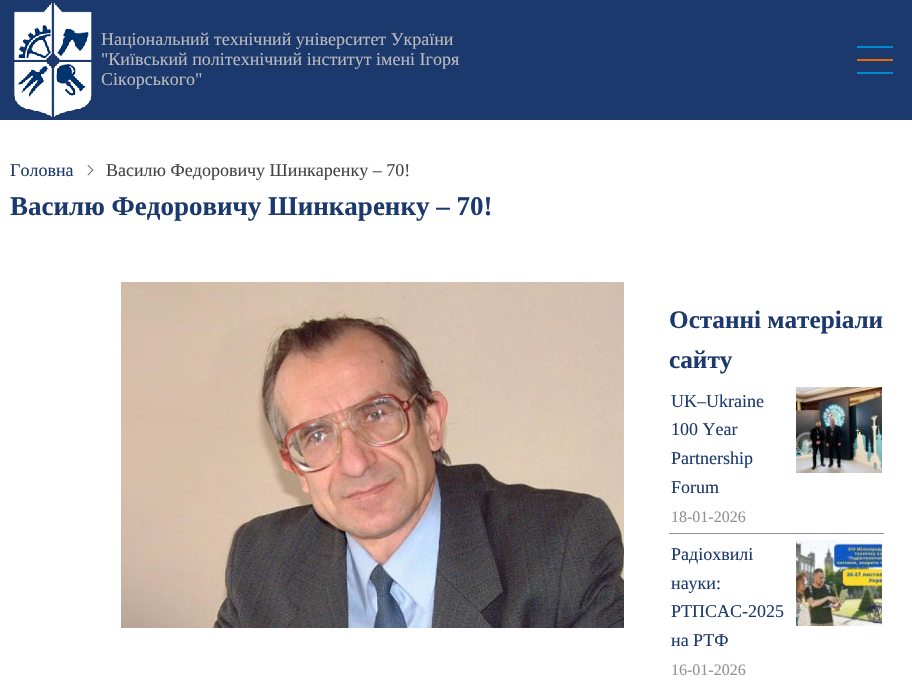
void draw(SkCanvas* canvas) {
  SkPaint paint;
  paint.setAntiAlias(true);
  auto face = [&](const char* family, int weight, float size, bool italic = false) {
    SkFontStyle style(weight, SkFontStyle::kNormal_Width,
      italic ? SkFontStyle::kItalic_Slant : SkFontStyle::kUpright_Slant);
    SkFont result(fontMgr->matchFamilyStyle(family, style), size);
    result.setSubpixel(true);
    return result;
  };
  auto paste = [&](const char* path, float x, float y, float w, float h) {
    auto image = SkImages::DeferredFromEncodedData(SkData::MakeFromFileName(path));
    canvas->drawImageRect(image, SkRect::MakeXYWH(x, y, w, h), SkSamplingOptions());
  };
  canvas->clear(0xffffffff);
  paint.setColor(0xff1c396e);
  canvas->drawRect(SkRect::MakeXYWH(0, 0, 912, 120), paint);
  paste("img/1.png", 14, 3, 78, 114);
  {
    const struct { float x, y, w, h; SkColor color; } items[] = {
      {857, 46, 36, 2, 0xff008acf},
      {857, 59, 36, 2, 0xffec6605},
      {857, 72, 36, 2, 0xff008acf},
    };
    for (auto [x, y, w, h, color] : items) {
      paint.setColor(color);
      canvas->drawRect(SkRect::MakeXYWH(x, y, w, h), paint);
    }
  }
  paste("img/2.png", 87, 165, 7, 11);
  paste("img/3.png", 121, 282, 503, 346);
  paint.setColor(0xff958f93);
  canvas->drawRect(SkRect::MakeXYWH(669, 533, 215, 1), paint);
  paste("img/4.png", 796, 387, 86, 86);
  paste("img/5.png", 796, 540, 86, 86);
  auto f0 = face("Liberation Serif", 400, 18);
  paint.setColor(0xffbbbbbb);
  {
    const struct { const char* s; float x, y; } items[] = {
      {"Національний технічний університет України", 101, 45},
      {"\"Київський політехнічний інститут імені Ігоря", 101, 65},
      {"Сікорського\"", 101, 85},
    };
    for (auto [s, x, y] : items) {
      canvas->drawString(s, x, y, f0, paint);
    }
  }
  paint.setColor(0xff1c396e);
  canvas->drawString("Головна", 10, 176, f0, paint);
  paint.setColor(0xff444444);
  canvas->drawString("Василю Федоровичу Шинкаренку – 70!", 106, 176, f0, paint);
  auto f1 = face("Liberation Serif", 700, 27);
  paint.setColor(0xff1c396e);
  canvas->drawString("Василю Федоровичу Шинкаренку – 70!", 10, 215, f1, paint);
  auto f2 = face("Liberation Serif", 700, 25.25f);
  canvas->drawString("Останні матеріали", 669, 328, f2, paint);
  canvas->drawString("сайту", 669, 368, f2, paint);
  {
    const struct { const char* s; float x, y; } items[] = {
      {"UK–Ukraine", 671, 407},
      {"100 Year", 671, 435},
      {"Partnership", 671, 464},
      {"Forum", 671, 493},
    };
    for (auto [s, x, y] : items) {
      canvas->drawString(s, x, y, f0, paint);
    }
  }
  auto f3 = face("Liberation Serif", 400, 16);
  paint.setColor(0xff958f93);
  canvas->drawString("18-01-2026", 671, 522, f3, paint);
  paint.setColor(0xff1c396e);
  {
    const struct { const char* s; float x, y; } items[] = {
      {"Радіохвилі", 671, 560},
      {"науки:", 671, 589},
      {"РТПСАС-2025", 671, 617},
      {"на РТФ", 671, 646},
    };
    for (auto [s, x, y] : items) {
      canvas->drawString(s, x, y, f0, paint);
    }
  }
  paint.setColor(0xff958f93);
  canvas->drawString("16-01-2026", 671, 675, f3, paint);
}
